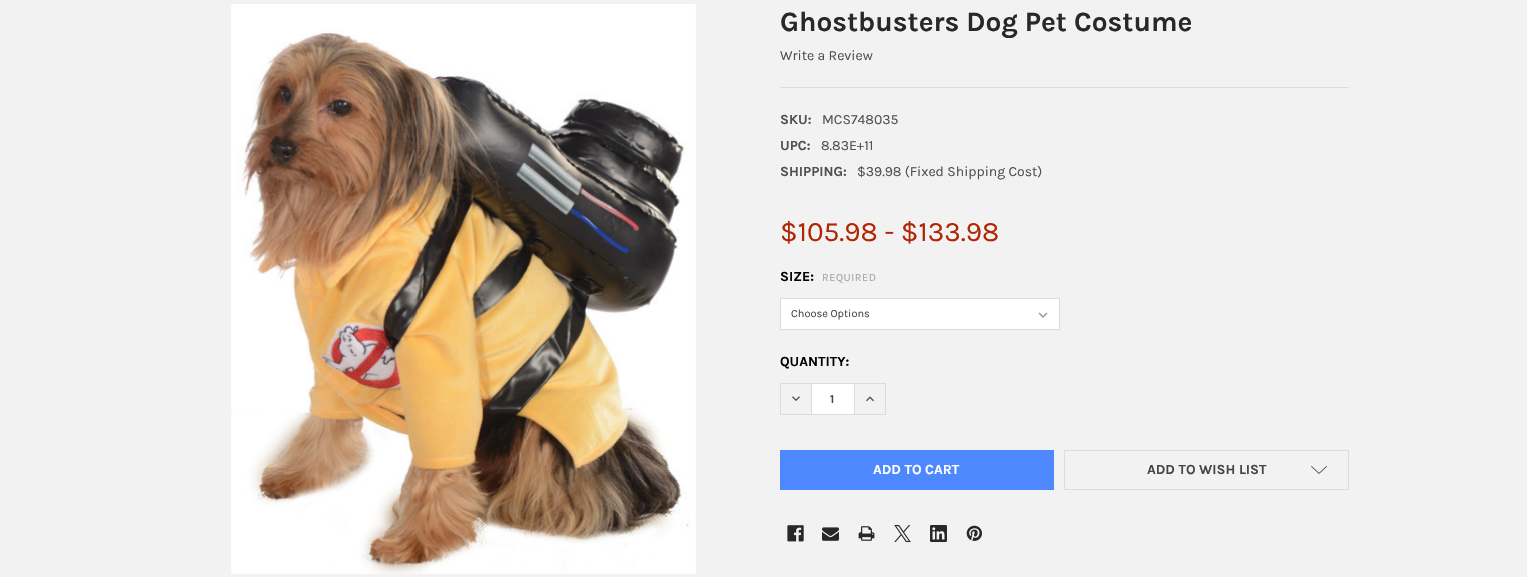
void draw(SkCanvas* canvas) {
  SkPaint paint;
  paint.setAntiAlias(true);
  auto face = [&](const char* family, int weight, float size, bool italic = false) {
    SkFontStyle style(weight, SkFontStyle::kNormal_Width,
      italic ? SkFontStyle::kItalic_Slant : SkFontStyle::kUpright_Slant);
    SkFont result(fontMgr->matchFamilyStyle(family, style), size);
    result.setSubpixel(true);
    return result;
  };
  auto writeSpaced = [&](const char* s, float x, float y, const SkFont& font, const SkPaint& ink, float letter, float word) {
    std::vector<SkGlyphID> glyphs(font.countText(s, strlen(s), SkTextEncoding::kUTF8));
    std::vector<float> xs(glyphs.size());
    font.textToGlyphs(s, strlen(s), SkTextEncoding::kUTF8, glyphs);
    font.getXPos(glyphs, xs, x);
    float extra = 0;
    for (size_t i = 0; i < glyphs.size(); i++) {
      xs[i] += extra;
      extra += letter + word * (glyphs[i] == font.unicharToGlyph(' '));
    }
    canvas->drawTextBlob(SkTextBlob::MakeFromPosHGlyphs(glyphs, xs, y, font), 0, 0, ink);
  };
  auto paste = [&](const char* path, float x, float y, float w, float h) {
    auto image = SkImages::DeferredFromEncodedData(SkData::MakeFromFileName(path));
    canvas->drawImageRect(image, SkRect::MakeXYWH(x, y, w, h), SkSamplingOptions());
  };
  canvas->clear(0xfff2f2f2);
  paste("img/1.png", 231, 4, 465, 570);
  paint.setColor(0xffdcdcdc);
  canvas->drawRect(SkRect::MakeXYWH(780, 87, 569, 1), paint);
  paint.setColor(0xffffffff);
  canvas->drawRect(SkRect::MakeXYWH(781, 299, 278, 30), paint);
  paste("img/2.png", 1038, 312, 10, 6);
  paint.setStroke(true);
  paint.setStrokeWidth(1);
  paint.setColor(0xffdcdcdc);
  canvas->drawRect(SkRect::MakeXYWH(780.5f, 298.5f, 279, 31), paint);
  paint.setStroke(false);
  {
    const struct { float x, y, w, h; SkColor color; } items[] = {
      {780, 383, 106, 1, 0xffdcdcdc},
      {780, 414, 106, 1, 0xffdcdcdc},
      {811, 384, 1, 30, 0xffdcdcdc},
      {780, 384, 1, 30, 0xffdcdcdc},
    };
    for (auto [x, y, w, h, color] : items) {
      paint.setColor(color);
      canvas->drawRect(SkRect::MakeXYWH(x, y, w, h), paint);
    }
  }
  paste("img/3.png", 792, 396, 8, 5);
  {
    const struct { float x, y, w, h; SkColor color; } items[] = {
      {812, 384, 42, 30, 0xffffffff},
      {885, 384, 1, 30, 0xffdcdcdc},
      {854, 384, 1, 30, 0xffdcdcdc},
    };
    for (auto [x, y, w, h, color] : items) {
      paint.setColor(color);
      canvas->drawRect(SkRect::MakeXYWH(x, y, w, h), paint);
    }
  }
  paste("img/4.png", 866, 396, 8, 6);
  paint.setColor(0xff4d88ff);
  canvas->drawRect(SkRect::MakeXYWH(780, 450, 274, 40), paint);
  paint.setStroke(true);
  paint.setColor(0xffdcdcdc);
  canvas->drawRect(SkRect::MakeXYWH(1064.5f, 450.5f, 284, 39), paint);
  paste("img/5.png", 1311, 466, 16, 8);
  paste("img/6.png", 787, 525, 17, 17);
  paste("img/7.png", 822, 527, 17, 14);
  paste("img/8.png", 858, 526, 17, 15);
  paste("img/9.png", 894, 525, 17, 17);
  paste("img/10.png", 930, 525, 17, 17);
  paste("img/11.png", 966, 525, 16, 16);
  auto f0 = face("Karla", 700, 28);
  paint.setStroke(false);
  paint.setColor(0xff282828);
  canvas->drawString("Ghostbusters Dog Pet Costume", 780, 31, f0, paint);
  auto f1 = face("Karla", 400, 14);
  paint.setColor(0xff505050);
  canvas->drawString("Write a Review", 780, 60, f1, paint);
  auto f2 = face("Karla", 700, 14);
  canvas->drawString("SKU:", 780, 124, f2, paint);
  canvas->drawString("MCS748035", 822, 124, f1, paint);
  canvas->drawString("UPC:", 780, 150, f2, paint);
  canvas->drawString("8.83E+11", 821, 150, f1, paint);
  canvas->drawString("SHIPPING:", 780, 176, f2, paint);
  canvas->drawString("$39.98 (Fixed Shipping Cost)", 857, 176, f1, paint);
  auto f3 = face("Karla", 400, 28);
  paint.setColor(0xffb12704);
  canvas->drawString("$105.98 - $133.98", 780, 241, f3, paint);
  paint.setColor(0xff000000);
  canvas->drawString("SIZE:", 780, 281, f2, paint);
  auto f4 = face("Karla", 400, 11);
  paint.setColor(0xffa5a5a5);
  writeSpaced("REQUIRED", 822, 281, f4, paint, 0.5f, 0);
  paint.setColor(0xff454545);
  canvas->drawString("Choose Options", 791, 317, f4, paint);
  paint.setColor(0xff000000);
  canvas->drawString("QUANTITY:", 780, 366, f2, paint);
  auto f5 = face("Karla", 700, 12);
  paint.setColor(0xff454545);
  canvas->drawString("1", 830, 403, f5, paint);
  paint.setColor(0xffffffff);
  canvas->drawString("ADD TO CART", 873, 474, f2, paint);
  paint.setColor(0xff454545);
  canvas->drawString("ADD TO WISH LIST", 1147, 474, f2, paint);
}
